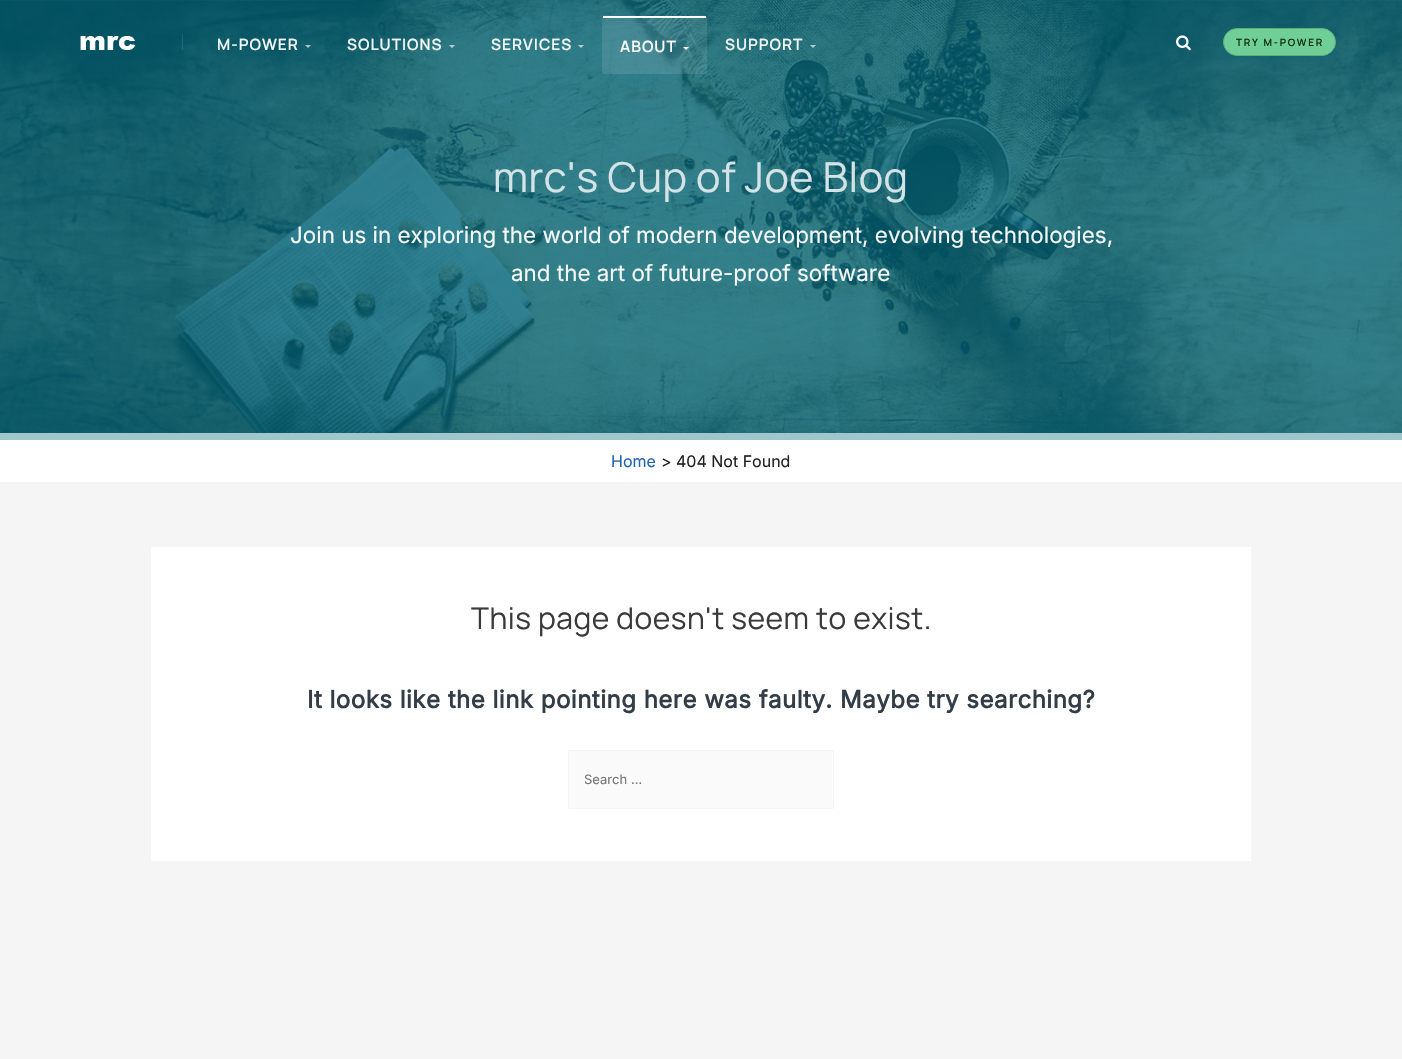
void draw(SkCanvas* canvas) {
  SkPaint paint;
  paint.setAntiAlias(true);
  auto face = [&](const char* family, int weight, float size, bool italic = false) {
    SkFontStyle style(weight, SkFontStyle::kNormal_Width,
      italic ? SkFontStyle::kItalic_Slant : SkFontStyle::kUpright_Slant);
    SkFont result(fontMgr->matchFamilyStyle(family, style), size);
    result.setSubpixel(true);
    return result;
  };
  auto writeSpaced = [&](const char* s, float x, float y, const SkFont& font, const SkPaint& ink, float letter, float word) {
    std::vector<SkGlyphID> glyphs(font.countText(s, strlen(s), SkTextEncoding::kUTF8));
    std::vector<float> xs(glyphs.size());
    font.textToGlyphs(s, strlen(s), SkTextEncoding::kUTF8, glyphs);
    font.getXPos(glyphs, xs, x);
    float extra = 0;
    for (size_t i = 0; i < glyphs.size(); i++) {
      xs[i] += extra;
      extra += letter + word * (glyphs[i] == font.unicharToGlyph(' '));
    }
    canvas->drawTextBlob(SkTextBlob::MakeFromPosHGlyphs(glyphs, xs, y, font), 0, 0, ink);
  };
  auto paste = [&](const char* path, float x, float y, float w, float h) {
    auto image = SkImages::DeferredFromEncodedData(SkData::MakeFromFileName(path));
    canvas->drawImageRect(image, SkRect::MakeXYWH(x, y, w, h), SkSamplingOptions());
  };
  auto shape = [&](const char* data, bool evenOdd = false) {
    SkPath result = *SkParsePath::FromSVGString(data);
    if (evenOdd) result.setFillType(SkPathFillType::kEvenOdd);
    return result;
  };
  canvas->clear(0xfff5f5f5);
  paste("img/3.png", 0, 0, 1402, 433);
  paste("img/1.png", 80, 36, 56, 14);
  paint.setColor(0x1affffff);
  canvas->drawRect(SkRect::MakeXYWH(182, 34, 1, 16), paint);
  paint.setColor(0xa6ffffff);
  canvas->drawPath(shape("M305 45H311L308 48Z"), paint);
  paint.setColor(0xffb6d0d4);
  canvas->drawPath(shape("M449 45H455L452 48Z"), paint);
  paint.setColor(0xffb6d1d5);
  canvas->drawPath(shape("M578 45H584L581 48Z"), paint);
  paint.setColor(0x1affffff);
  canvas->drawRoundRect(SkRect::MakeXYWH(602, 16, 105, 58), 2, 2, paint);
  paint.setColor(0xffffffff);
  canvas->drawRect(SkRect::MakeXYWH(603, 16, 103, 2), paint);
  canvas->drawPath(shape("M683 47H689L686 50Z"), paint);
  paint.setColor(0xa6ffffff);
  canvas->drawPath(shape("M810 45H816L813 48Z"), paint);
  paste("img/2.png", 1176, 35, 15, 16);
  paint.setColor(0xff6fcf97);
  canvas->drawRoundRect(SkRect::MakeXYWH(1223.5f, 28.5f, 112, 27), 13.5f, 13.5f, paint);
  paint.setStroke(true);
  paint.setStrokeWidth(1);
  paint.setColor(0xff5eb080);
  canvas->drawRoundRect(SkRect::MakeXYWH(1223.5f, 28.5f, 112, 27), 13.5f, 13.5f, paint);
  paint.setStroke(false);
  {
    const struct { float x, y, w, h; SkColor color; } items[] = {
      {0, 433, 1402, 7, 0xffa0c6cd},
      {0, 440, 1402, 42, 0xffffffff},
      {0, 482, 1402, 1, 0xfff2f5f7},
      {151, 547, 1100, 314, 0xffffffff},
    };
    for (auto [x, y, w, h, color] : items) {
      paint.setColor(color);
      canvas->drawRect(SkRect::MakeXYWH(x, y, w, h), paint);
    }
  }
  paint.setColor(0xfffafafa);
  canvas->drawRoundRect(SkRect::MakeXYWH(568.5f, 750.5f, 265, 58), 1.5f, 1.5f, paint);
  paint.setStroke(true);
  paint.setColor(0xfff2f5f7);
  canvas->drawRoundRect(SkRect::MakeXYWH(568.5f, 750.5f, 265, 58), 1.5f, 1.5f, paint);
  auto f0 = face("Manrope", 600, 15.5f);
  paint.setStroke(false);
  paint.setColor(0xfff4f8f8);
  {
    const struct { const char* s; float x, y; } items[] = {
      {"M-POWER", 217, 50},
      {"SOLUTIONS", 347, 50},
      {"SERVICES", 491, 50},
    };
    for (auto [s, x, y] : items) {
      writeSpaced(s, x, y, f0, paint, 1, 0);
    }
  }
  paint.setColor(0xffffffff);
  writeSpaced("ABOUT", 620, 52, f0, paint, 1, 0);
  paint.setColor(0xfff4f8f8);
  writeSpaced("SUPPORT", 725, 50, f0, paint, 1, 0);
  auto f1 = face("Manrope", 600, 10);
  paint.setColor(0xff0e2f0c);
  writeSpaced("TRY M-POWER", 1236, 46, f1, paint, 1.75f, 0);
  auto f2 = face("Manrope", 400, 41.25f);
  paint.setColor(0xffd4e3e6);
  writeSpaced("mrc's Cup of Joe Blog", 493, 192, f2, paint, 0.5f, 0);
  auto f3 = face("Inter", 400, 22.4f);
  paint.setColor(0xfff4f8f8);
  canvas->drawString("Join us in exploring the world of modern development, evolving technologies,", 290, 243, f3, paint);
  canvas->drawString("and the art of future-proof software", 511, 281, f3, paint);
  auto f4 = face("Inter", 400, 16);
  paint.setColor(0xff2064ae);
  canvas->drawString("Home", 611, 467, f4, paint);
  paint.setColor(0xff222222);
  canvas->drawString(">", 661, 467, f4, paint);
  canvas->drawString("404 Not Found", 676, 467, f4, paint);
  auto f5 = face("Manrope", 400, 30);
  paint.setColor(0xff3a3a3a);
  writeSpaced("This page doesn't seem to exist.", 471, 629, f5, paint, 0.5f, 0);
  auto f6 = face("Inter", 700, 24);
  paint.setColor(0xff323d47);
  writeSpaced("It looks like the link pointing here was faulty. Maybe try searching?", 307, 708, f6, paint, 0.5f, 0);
  auto f7 = face("Inter", 400, 13);
  paint.setColor(0xff757575);
  canvas->drawString("Search …", 584, 784, f7, paint);
}
